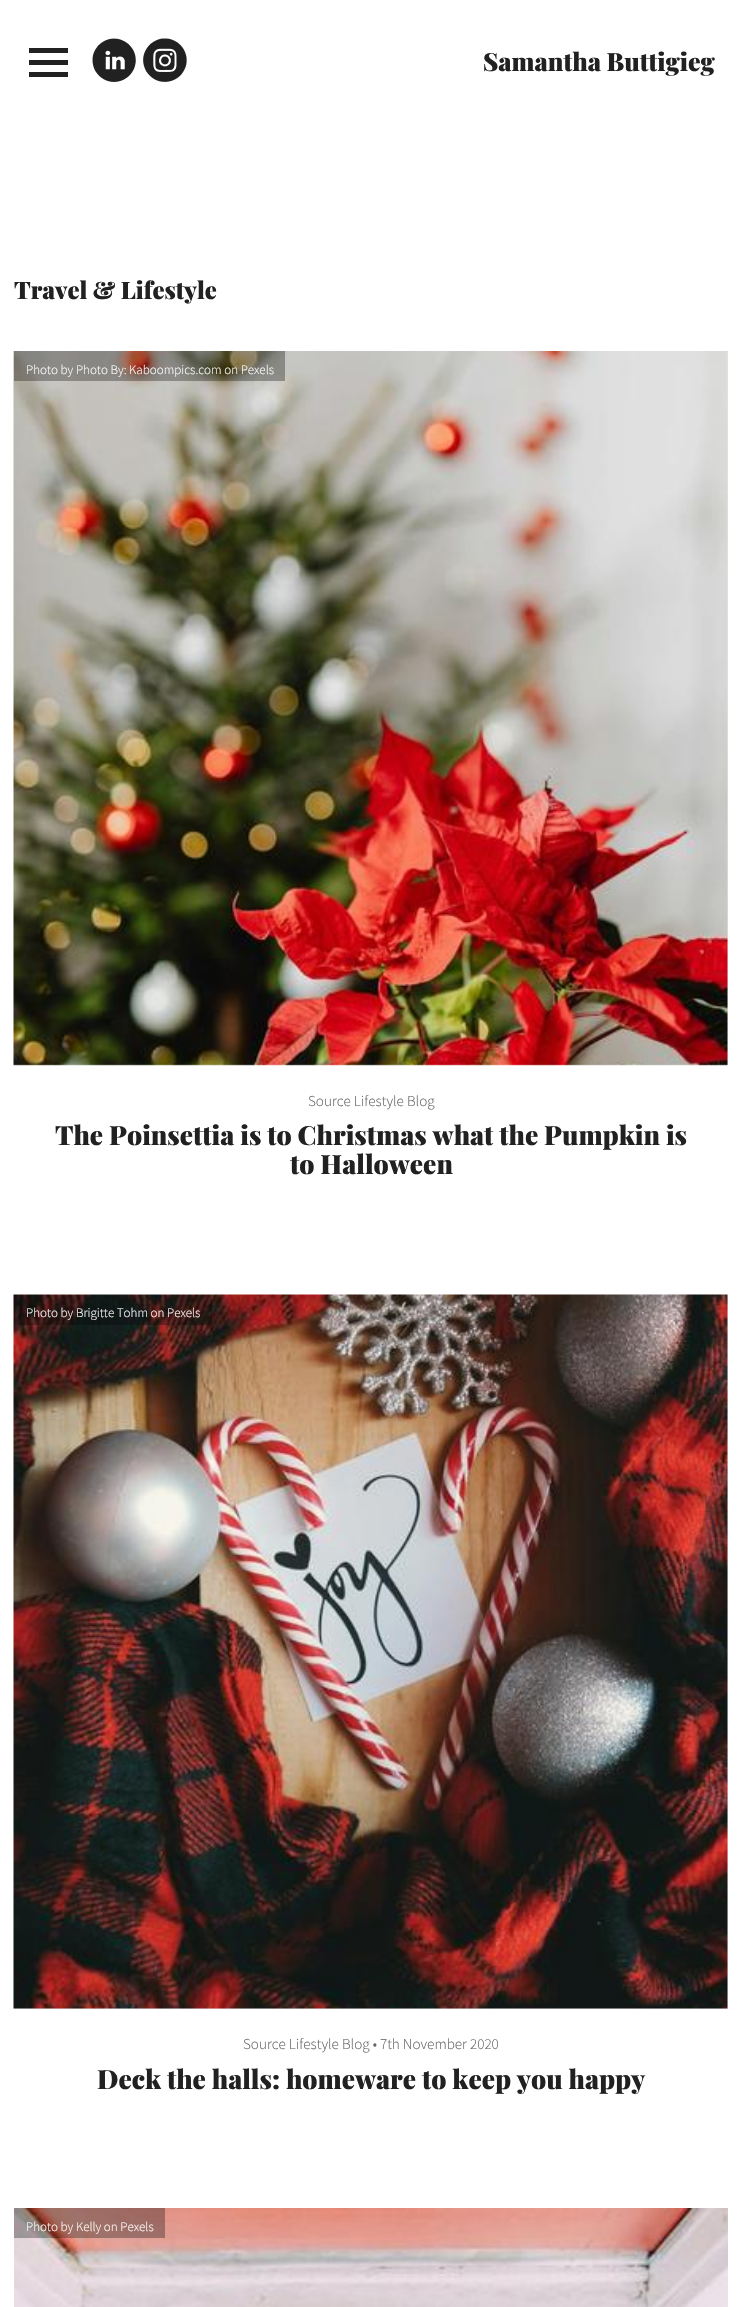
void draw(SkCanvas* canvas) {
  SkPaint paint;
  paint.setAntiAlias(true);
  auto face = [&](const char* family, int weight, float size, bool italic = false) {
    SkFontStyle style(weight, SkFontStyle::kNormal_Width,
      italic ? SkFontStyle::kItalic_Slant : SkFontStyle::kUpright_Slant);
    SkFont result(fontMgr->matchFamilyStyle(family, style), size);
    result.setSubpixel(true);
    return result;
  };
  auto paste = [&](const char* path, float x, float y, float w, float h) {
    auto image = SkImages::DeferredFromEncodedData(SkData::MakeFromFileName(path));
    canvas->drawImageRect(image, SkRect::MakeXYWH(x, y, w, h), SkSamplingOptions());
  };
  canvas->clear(0xffffffff);
  {
    const struct { float x, y, w, h; SkColor color; } items[] = {
      {29, 60, 39, 5, 0xff212121},
      {29, 48, 39, 5, 0xff212121},
      {29, 72, 39, 5, 0xff212121},
    };
    for (auto [x, y, w, h, color] : items) {
      paint.setColor(color);
      canvas->drawRect(SkRect::MakeXYWH(x, y, w, h), paint);
    }
  }
  paste("img/1.png", 92, 38, 44, 44);
  paste("img/2.png", 143, 38, 44, 44);
  paint.setColor(0xffe6e6e6);
  canvas->drawRect(SkRect::MakeXYWH(14, 351, 714, 714), paint);
  paste("img/3.png", 13, 351, 715, 715);
  paint.setColor(0x4d000000);
  canvas->drawRect(SkRect::MakeXYWH(14, 351, 271, 30), paint);
  paint.setColor(0xffe6e6e6);
  canvas->drawRect(SkRect::MakeXYWH(14, 1295, 714, 714), paint);
  paste("img/4.png", 13, 1294, 715, 715);
  paint.setColor(0x4d000000);
  canvas->drawRect(SkRect::MakeXYWH(14, 1295, 198, 30), paint);
  paste("img/5.png", 14, 2208, 714, 99);
  canvas->drawRect(SkRect::MakeXYWH(14, 2208, 151, 30), paint);
  auto f0 = face("Playfair Display", 900, 25);
  paint.setColor(0xff212121);
  canvas->drawString("Samantha Buttigieg", 483, 71, f0, paint);
  auto f1 = face("Playfair Display", 900, 24);
  canvas->drawString("Travel & Lifestyle", 14, 299, f1, paint);
  auto f2 = face("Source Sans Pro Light", 300, 13);
  paint.setColor(0xffffffff);
  canvas->drawString("Photo by Photo By: Kaboompics.com on Pexels", 26, 374, f2, paint);
  auto f3 = face("Source Sans Pro Light", 300, 15.1f);
  paint.setColor(0xff646464);
  canvas->drawString("Source Lifestyle Blog", 308, 1106, f3, paint);
  auto f4 = face("Playfair Display", 900, 26.4f);
  paint.setColor(0xff212121);
  canvas->drawString("The Poinsettia is to Christmas what the Pumpkin is", 55, 1145, f4, paint);
  canvas->drawString("to Halloween", 290, 1174, f4, paint);
  paint.setColor(0xffffffff);
  canvas->drawString("Photo by Brigitte Tohm on Pexels", 26, 1317, f2, paint);
  paint.setColor(0xff646464);
  canvas->drawString("Source Lifestyle Blog • 7th November 2020", 243, 2049, f3, paint);
  paint.setColor(0xff212121);
  canvas->drawString("Deck the halls: homeware to keep you happy", 97, 2089, f4, paint);
  paint.setColor(0xffffffff);
  canvas->drawString("Photo by Kelly on Pexels", 26, 2231, f2, paint);
}
